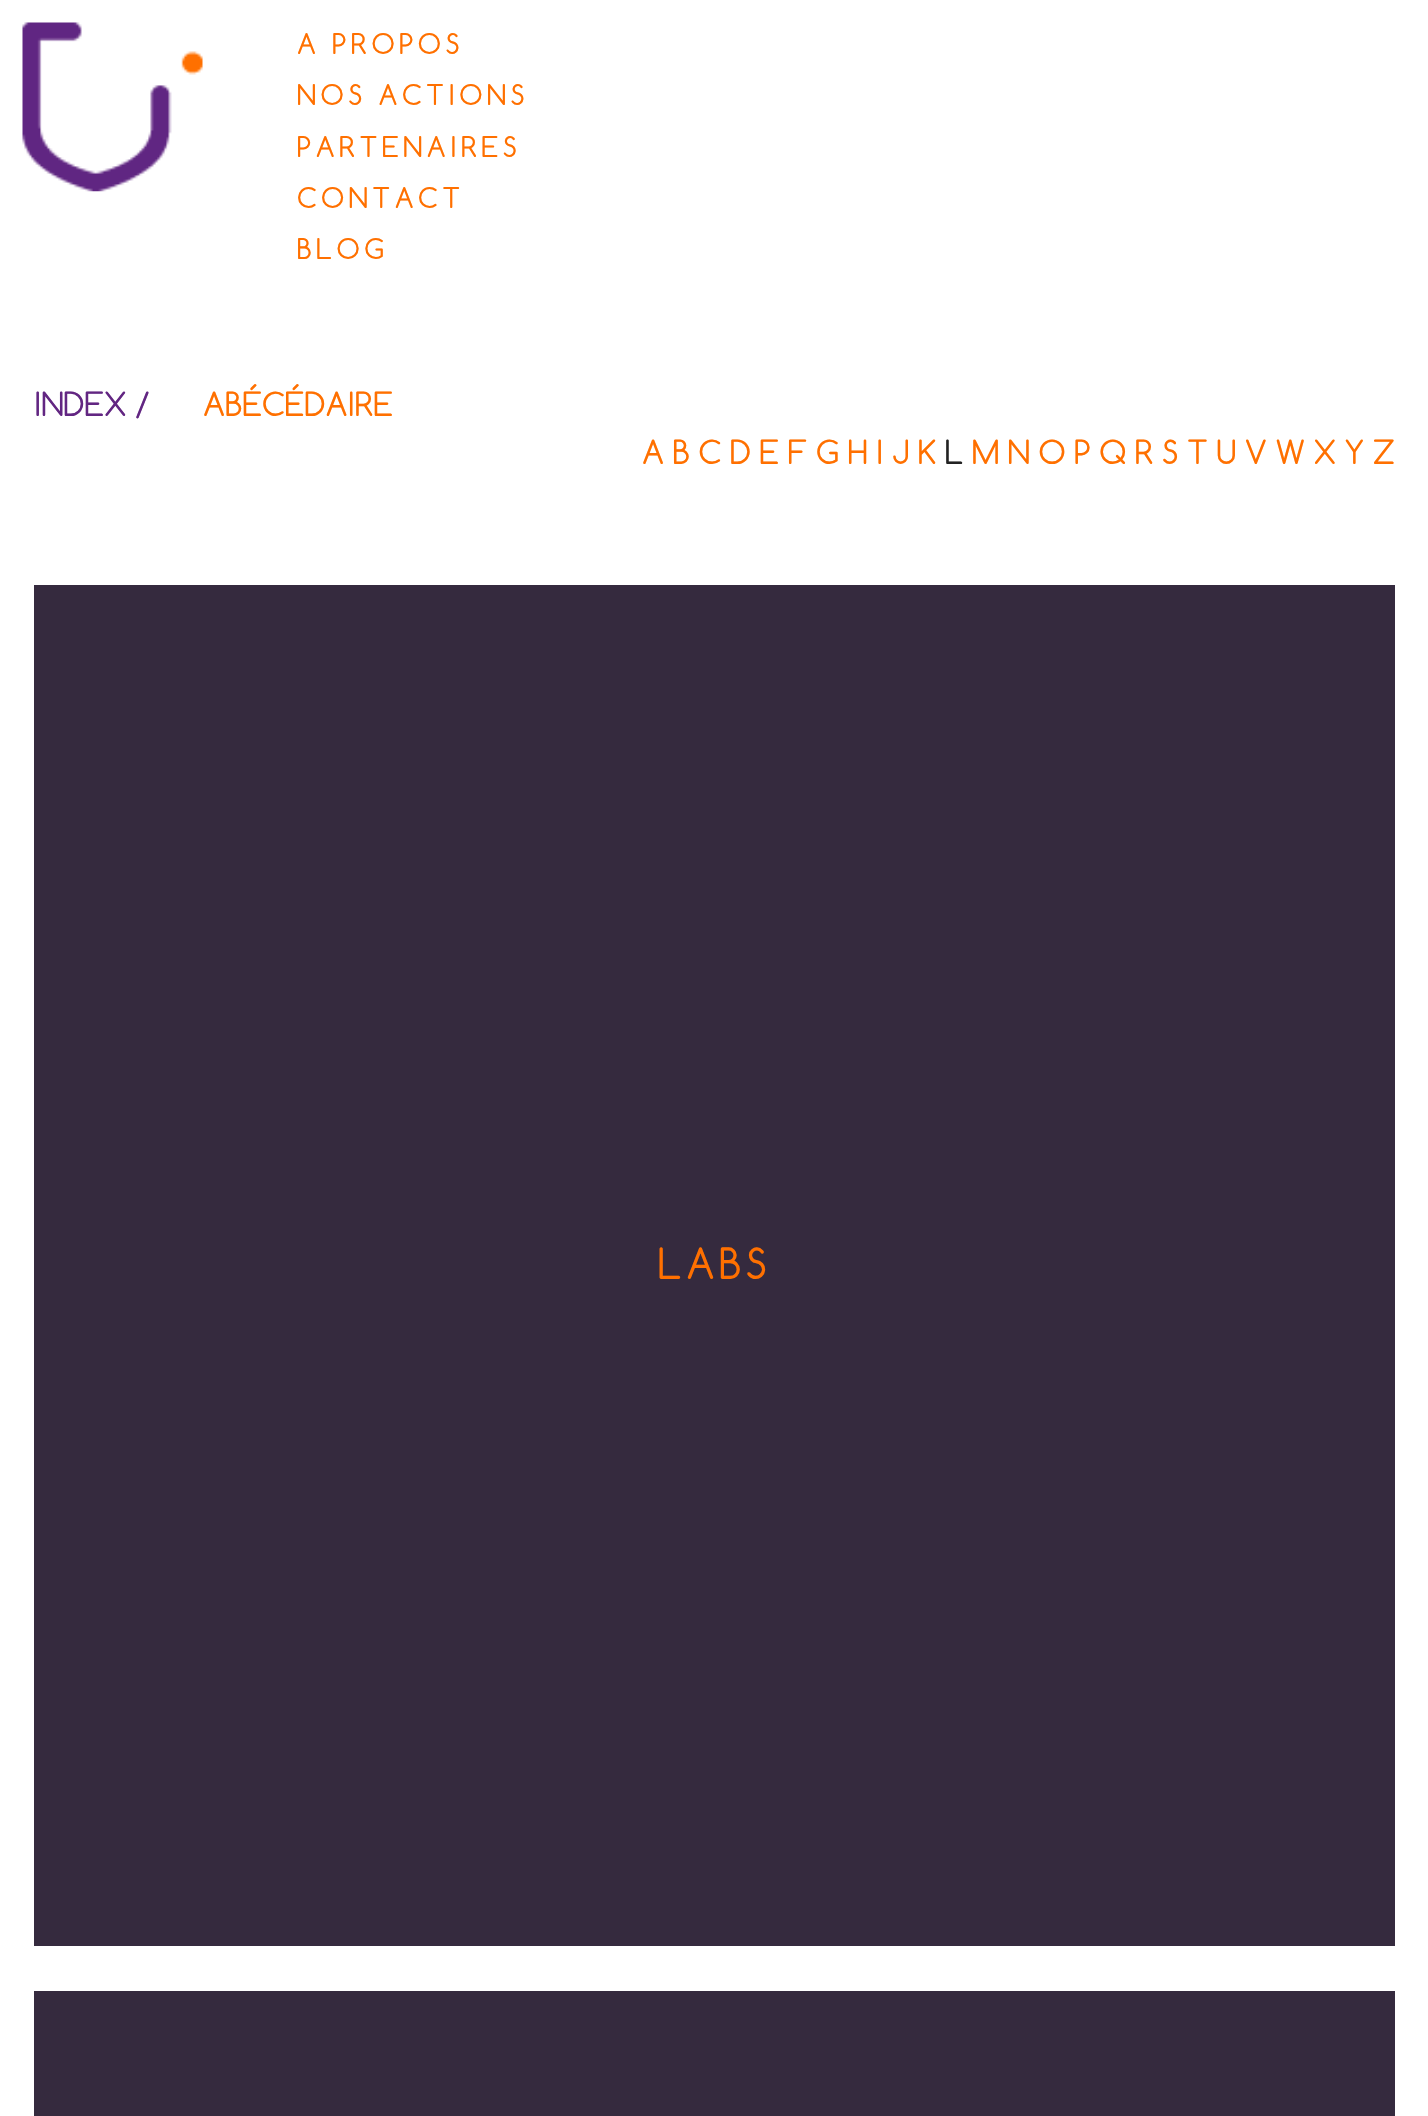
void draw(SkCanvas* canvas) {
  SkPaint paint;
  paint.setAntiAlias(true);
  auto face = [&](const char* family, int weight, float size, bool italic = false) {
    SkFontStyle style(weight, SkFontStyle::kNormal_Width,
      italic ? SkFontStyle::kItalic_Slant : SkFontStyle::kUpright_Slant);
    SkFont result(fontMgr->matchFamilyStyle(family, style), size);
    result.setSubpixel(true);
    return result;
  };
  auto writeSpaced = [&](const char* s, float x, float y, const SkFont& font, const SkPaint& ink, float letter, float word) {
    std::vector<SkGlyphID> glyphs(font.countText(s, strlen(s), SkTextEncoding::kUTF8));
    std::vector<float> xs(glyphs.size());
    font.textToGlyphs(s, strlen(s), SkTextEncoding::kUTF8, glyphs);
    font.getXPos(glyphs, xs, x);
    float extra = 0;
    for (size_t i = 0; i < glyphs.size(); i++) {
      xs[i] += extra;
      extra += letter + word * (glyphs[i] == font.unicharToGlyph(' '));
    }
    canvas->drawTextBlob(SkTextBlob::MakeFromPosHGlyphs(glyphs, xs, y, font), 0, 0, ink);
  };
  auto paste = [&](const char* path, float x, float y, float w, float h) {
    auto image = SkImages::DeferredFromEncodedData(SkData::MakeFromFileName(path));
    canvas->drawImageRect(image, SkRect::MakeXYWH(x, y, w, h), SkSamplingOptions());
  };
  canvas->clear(0xffffffff);
  paste("img/1.png", 22, 22, 181, 170);
  paint.setColor(0xff352a3e);
  canvas->drawRect(SkRect::MakeXYWH(34, 585, 1361, 1361), paint);
  canvas->drawRect(SkRect::MakeXYWH(34, 1991, 1361, 125), paint);
  auto f0 = face("Comfortaa", 400, 27);
  paint.setColor(0xffff7000);
  {
    const struct { const char* s; float x, y; } items[] = {
      {"A PROPOS", 297, 54},
      {"NOS ACTIONS", 297, 105},
      {"PARTENAIRES", 297, 157},
      {"CONTACT", 297, 208},
      {"BLOG", 297, 259},
    };
    for (auto [s, x, y] : items) {
      writeSpaced(s, x, y, f0, paint, 4.5f, 0);
    }
  }
  auto f1 = face("Comfortaa", 400, 31.5f);
  paint.setColor(0xff622682);
  canvas->drawString("INDEX /", 34, 416, f1, paint);
  paint.setColor(0xffff7000);
  canvas->drawString("ABÉCÉDAIRE", 203, 416, f1, paint);
  canvas->drawString("A B C D E F G H I J K", 642, 464, f1, paint);
  paint.setColor(0xff222222);
  canvas->drawString("L", 945, 464, f1, paint);
  paint.setColor(0xffff7000);
  canvas->drawString("M N O P Q R S T U V W X Y Z", 972, 464, f1, paint);
  auto f2 = face("Comfortaa", 400, 40.5f);
  writeSpaced("LABS", 658, 1279, f2, paint, 4.5f, 0);
}
